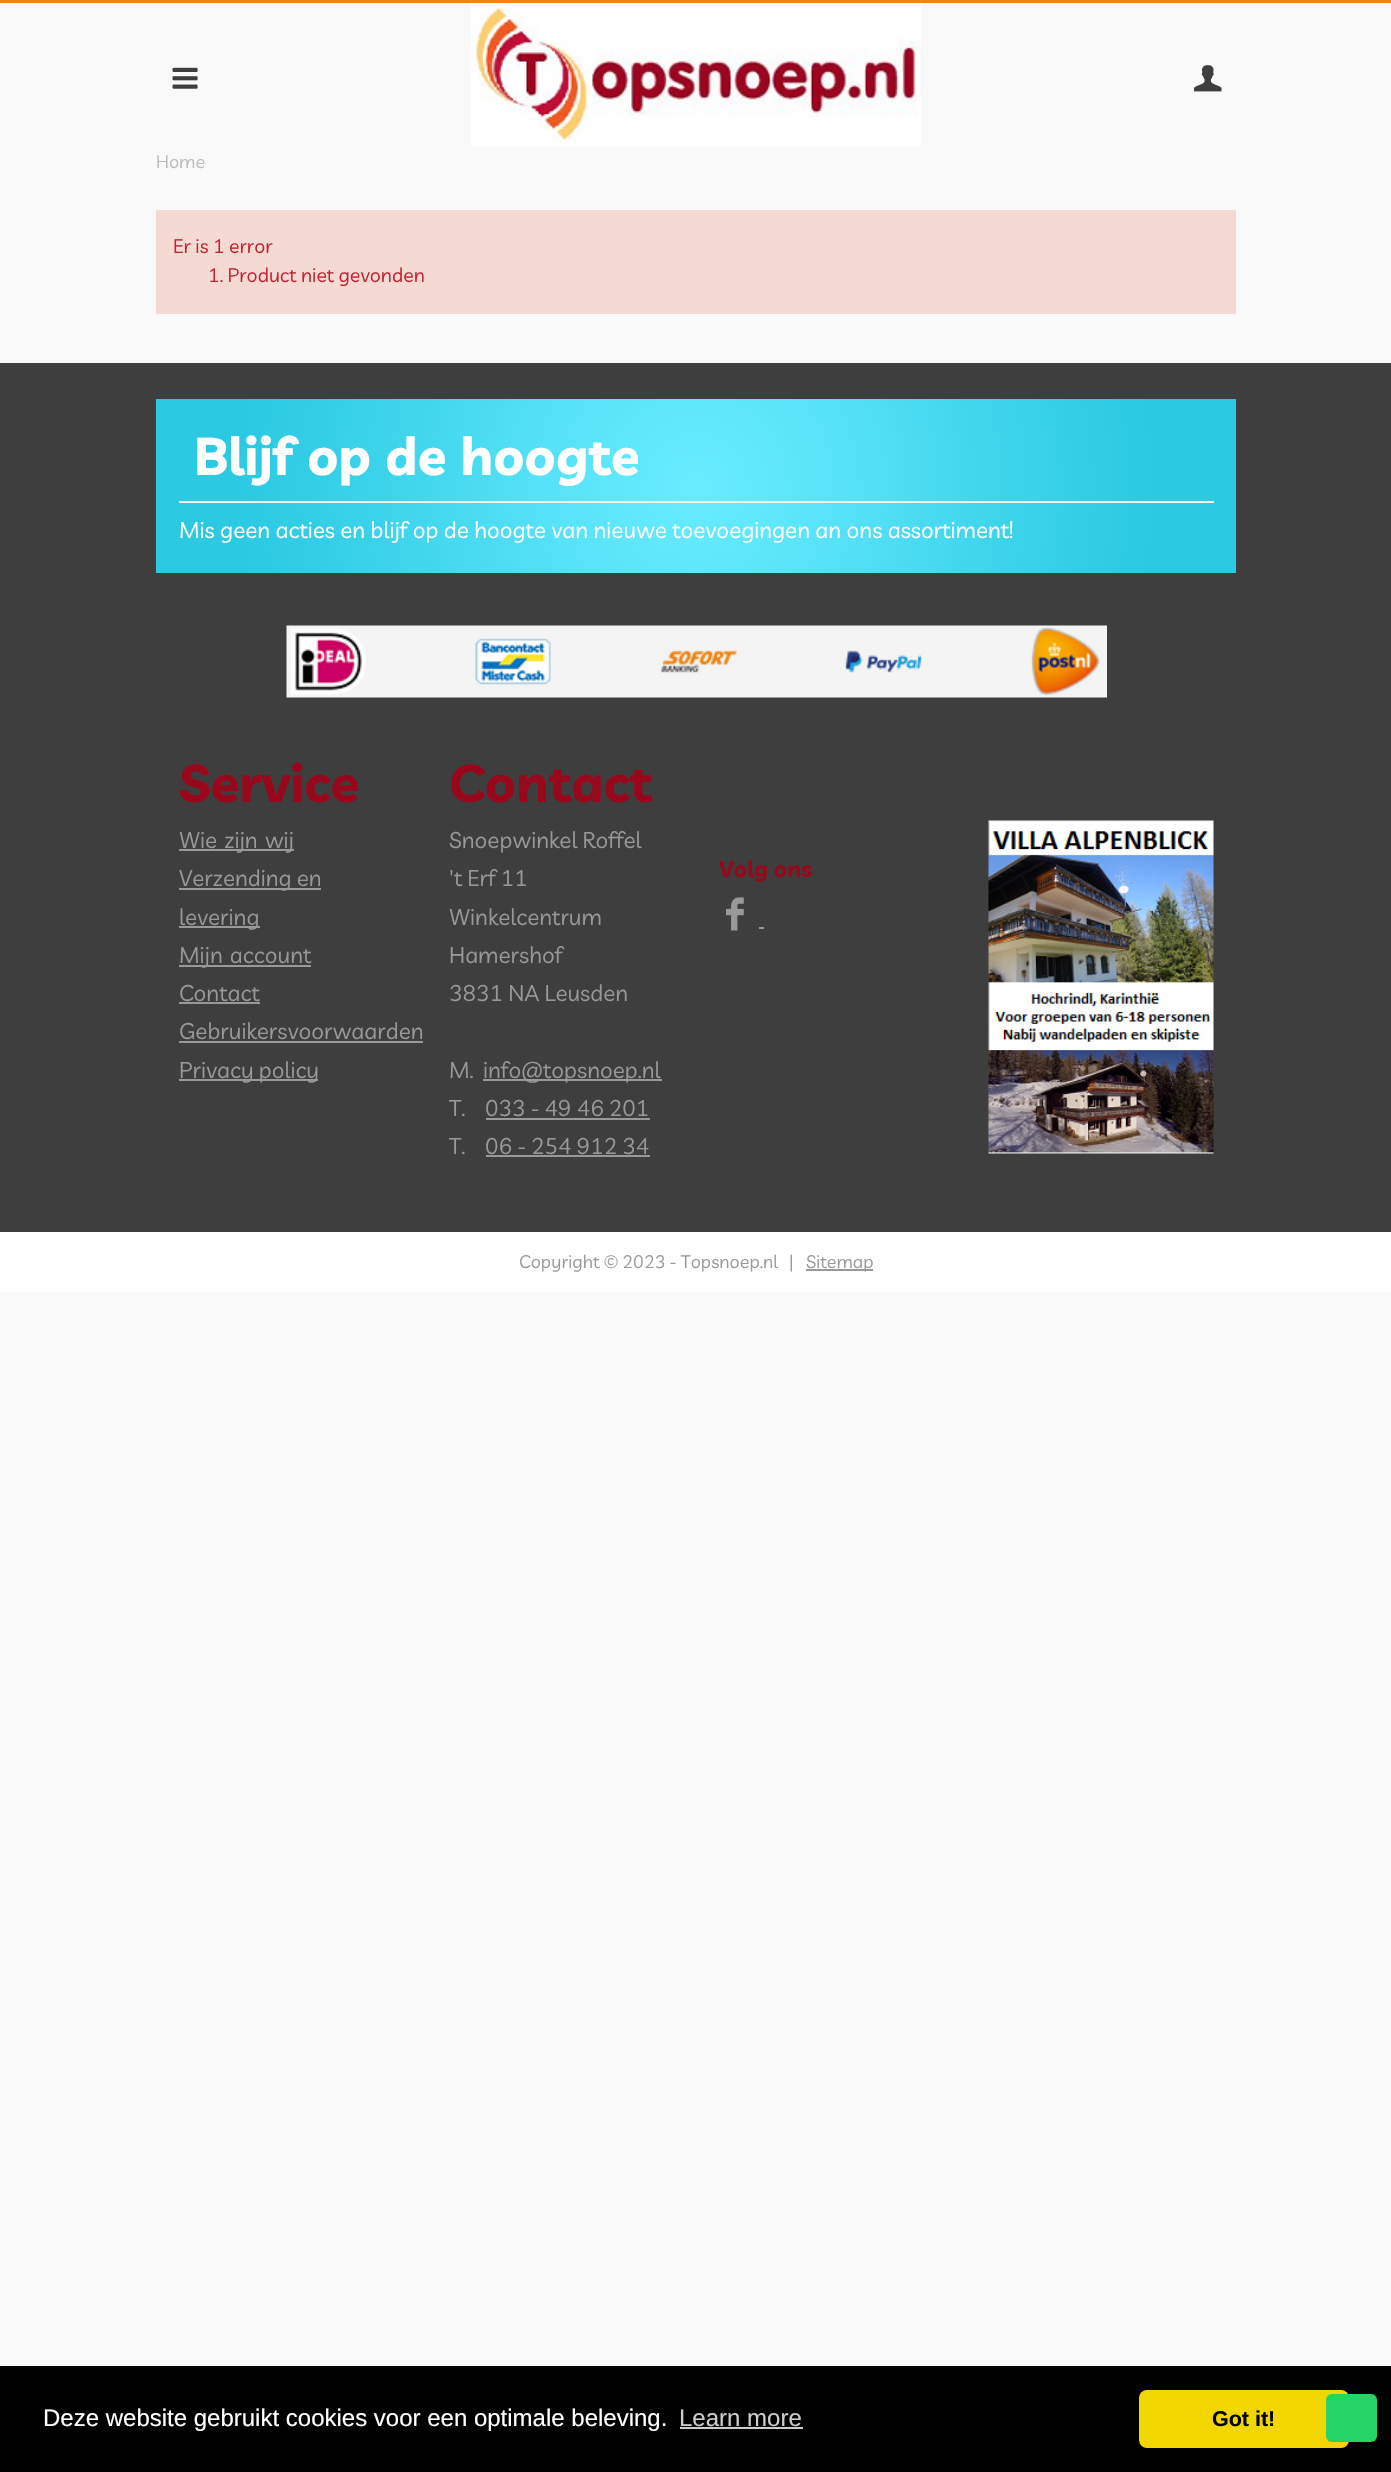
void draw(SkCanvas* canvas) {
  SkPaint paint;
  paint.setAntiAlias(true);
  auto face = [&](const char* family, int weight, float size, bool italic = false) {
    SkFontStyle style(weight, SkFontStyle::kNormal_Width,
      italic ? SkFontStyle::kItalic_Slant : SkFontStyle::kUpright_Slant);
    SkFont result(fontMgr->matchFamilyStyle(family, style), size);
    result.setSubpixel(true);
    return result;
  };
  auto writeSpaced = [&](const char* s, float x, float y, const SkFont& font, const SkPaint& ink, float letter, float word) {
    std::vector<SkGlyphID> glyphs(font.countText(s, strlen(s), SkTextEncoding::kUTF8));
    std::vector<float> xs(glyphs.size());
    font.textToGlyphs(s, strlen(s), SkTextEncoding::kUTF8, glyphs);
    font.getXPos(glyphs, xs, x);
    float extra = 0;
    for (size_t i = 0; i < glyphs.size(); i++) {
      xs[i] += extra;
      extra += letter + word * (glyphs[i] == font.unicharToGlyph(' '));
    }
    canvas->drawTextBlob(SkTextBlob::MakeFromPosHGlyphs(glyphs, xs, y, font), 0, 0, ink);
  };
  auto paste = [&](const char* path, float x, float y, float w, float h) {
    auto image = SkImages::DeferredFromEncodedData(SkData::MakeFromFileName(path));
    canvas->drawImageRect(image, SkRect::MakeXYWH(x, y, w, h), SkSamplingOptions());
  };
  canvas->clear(0xfff9f9f9);
  paint.setColor(0xfff28220);
  canvas->drawRect(SkRect::MakeXYWH(0, 0, 1391, 3), paint);
  paste("img/1.png", 172, 67, 26, 22);
  paste("img/2.png", 471, 3, 450, 144);
  paste("img/3.png", 1194, 65, 28, 27);
  {
    const struct { float x, y, w, h; SkColor color; } items[] = {
      {156, 210, 1080, 104, 0xfff5dad3},
      {0, 363, 1391, 869, 0xff3e3e3e},
      {0, 1232, 1391, 60, 0xffffffff},
    };
    for (auto [x, y, w, h, color] : items) {
      paint.setColor(color);
      canvas->drawRect(SkRect::MakeXYWH(x, y, w, h), paint);
    }
  }
  paste("img/4.png", 156, 399, 1080, 174);
  paint.setColor(0xfff2f2f2);
  canvas->drawRect(SkRect::MakeXYWH(179, 501, 1035, 2), paint);
  paste("img/5.png", 286, 625, 821, 73);
  {
    const struct { float x, y, w, h; SkColor color; } items[] = {
      {179, 849, 115, 2, 0xff999999},
      {179, 888, 142, 2, 0xff999999},
      {179, 926, 81, 2, 0xff999999},
      {179, 965, 132, 2, 0xff999999},
      {179, 1002, 81, 2, 0xff999999},
      {179, 1041, 244, 2, 0xff999999},
      {179, 1079, 139, 2, 0xff999999},
      {483, 1079, 179, 2, 0xff999999},
      {486, 1118, 164, 2, 0xff999999},
      {486, 1155, 164, 2, 0xff999999},
    };
    for (auto [x, y, w, h, color] : items) {
      paint.setColor(color);
      canvas->drawRect(SkRect::MakeXYWH(x, y, w, h), paint);
    }
  }
  paste("img/6.png", 726, 897, 18, 34);
  canvas->drawRect(SkRect::MakeXYWH(759, 927, 5, 2), paint);
  paste("img/7.png", 988, 820, 226, 334);
  {
    const struct { float x, y, w, h; SkColor color; } items[] = {
      {806, 1269, 67, 2, 0xff999999},
      {0, 2366, 1391, 106, 0xff000000},
      {680, 2427, 123, 2, 0xffcccccc},
    };
    for (auto [x, y, w, h, color] : items) {
      paint.setColor(color);
      canvas->drawRect(SkRect::MakeXYWH(x, y, w, h), paint);
    }
  }
  paint.setColor(0xfff1d600);
  canvas->drawRoundRect(SkRect::MakeXYWH(1139, 2390, 210, 58), 8, 8, paint);
  paint.setColor(0xff25d366);
  canvas->drawRoundRect(SkRect::MakeXYWH(1326, 2394, 51, 48), 6, 6, paint);
  auto f0 = face("Livvic", 400, 18);
  paint.setColor(0xffbbbbbb);
  canvas->drawString("Home", 156, 168, f0, paint);
  auto f1 = face("Livvic", 400, 19.5f);
  paint.setColor(0xffc02230);
  canvas->drawString("Er is 1 error", 173, 253, f1, paint);
  canvas->drawString("1. Product niet gevonden", 208, 282, f1, paint);
  auto f2 = face("Livvic", 700, 52.5f);
  paint.setColor(0xffffffff);
  writeSpaced("Blijf op de hoogte", 194, 475, f2, paint, 0, 1);
  auto f3 = face("Livvic", 400, 22.5f);
  writeSpaced("Mis geen acties en blijf op de hoogte van nieuwe toevoegingen an ons assortiment!", 179, 538, f3, paint, 0, 0.25f);
  paint.setColor(0xff98081c);
  canvas->drawString("Service", 179, 802, f2, paint);
  paint.setColor(0xff999999);
  writeSpaced("Wie zijn wij", 179, 848, f3, paint, 0, 2);
  canvas->drawString("Verzending en", 179, 886, f3, paint);
  canvas->drawString("levering", 179, 925, f3, paint);
  writeSpaced("Mijn account", 179, 963, f3, paint, 0, 2);
  {
    const struct { const char* s; float x, y; } items[] = {
      {"Contact", 179, 1001},
      {"Gebruikersvoorwaarden", 179, 1039},
      {"Privacy policy", 179, 1078},
    };
    for (auto [s, x, y] : items) {
      canvas->drawString(s, x, y, f3, paint);
    }
  }
  paint.setColor(0xff98081c);
  canvas->drawString("Contact", 449, 802, f2, paint);
  paint.setColor(0xff999999);
  {
    const struct { const char* s; float x, y; } items[] = {
      {"Snoepwinkel Roffel", 449, 848},
      {"'t Erf 11", 449, 886},
      {"Winkelcentrum", 449, 925},
      {"Hamershof", 449, 963},
      {"3831 NA Leusden", 449, 1001},
      {"M.", 449, 1078},
      {"info@topsnoep.nl", 483, 1078},
      {"T.", 449, 1116},
      {"033 - 49 46 201", 485, 1116},
      {"T.", 449, 1154},
      {"06 - 254 912 34", 485, 1154},
    };
    for (auto [s, x, y] : items) {
      canvas->drawString(s, x, y, f3, paint);
    }
  }
  auto f4 = face("Livvic", 700, 22.5f);
  paint.setColor(0xff98081c);
  canvas->drawString("Volg ons", 719, 877, f4, paint);
  paint.setColor(0xff999999);
  {
    const struct { const char* s; float x, y; } items[] = {
      {"Copyright © 2023 - Topsnoep.nl", 519, 1268},
      {"|", 789, 1268},
      {"Sitemap", 806, 1268},
    };
    for (auto [s, x, y] : items) {
      canvas->drawString(s, x, y, f0, paint);
    }
  }
  auto f5 = face("Liberation Sans", 400, 24);
  paint.setColor(0xffffffff);
  canvas->drawString("Deze website gebruikt cookies voor een optimale beleving.", 43, 2426, f5, paint);
  paint.setColor(0xffcccccc);
  canvas->drawString("Learn more", 679, 2426, f5, paint);
  auto f6 = face("Liberation Sans", 700, 21.5f);
  paint.setColor(0xff000000);
  canvas->drawString("Got it!", 1212, 2426, f6, paint);
}
